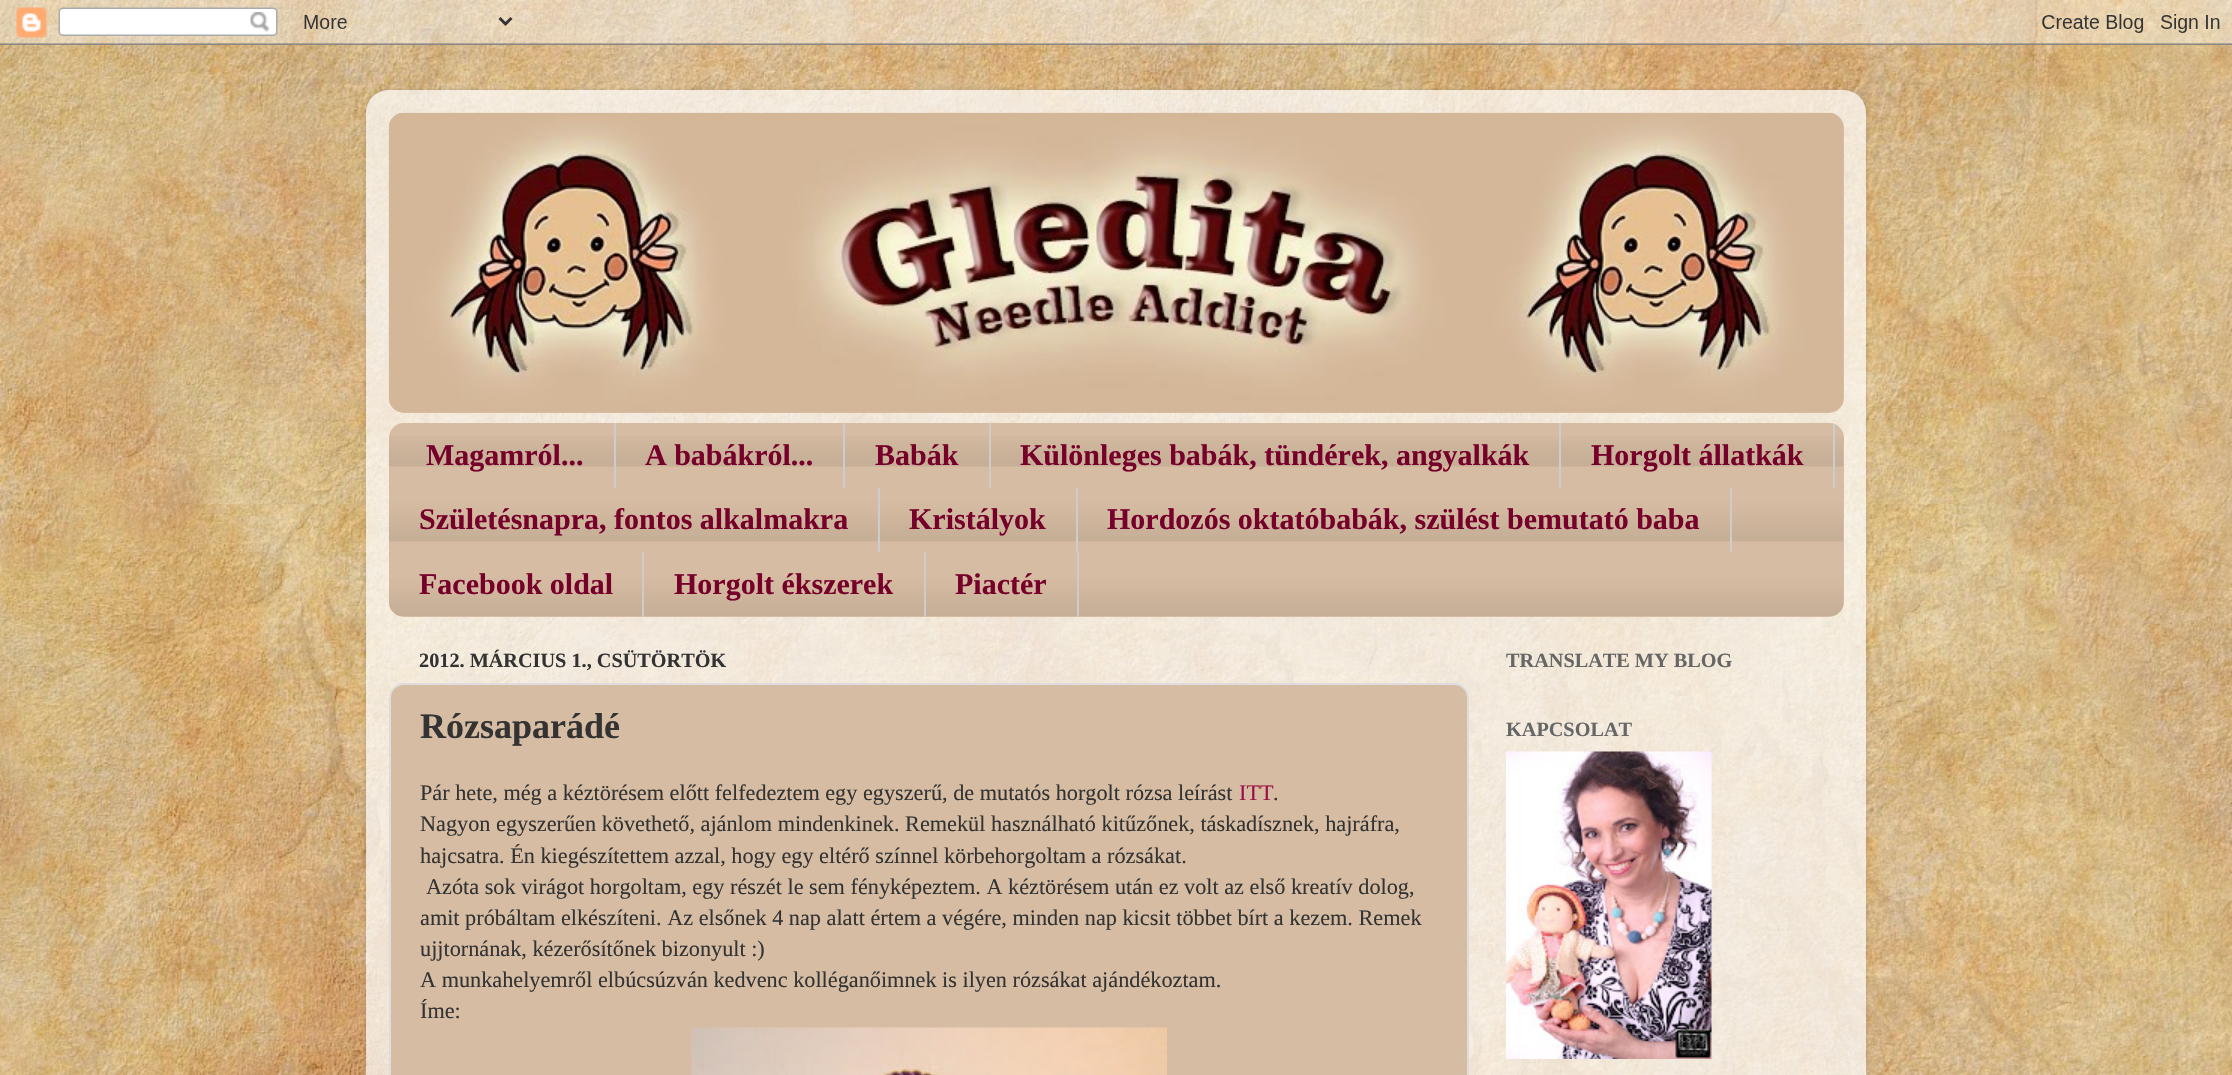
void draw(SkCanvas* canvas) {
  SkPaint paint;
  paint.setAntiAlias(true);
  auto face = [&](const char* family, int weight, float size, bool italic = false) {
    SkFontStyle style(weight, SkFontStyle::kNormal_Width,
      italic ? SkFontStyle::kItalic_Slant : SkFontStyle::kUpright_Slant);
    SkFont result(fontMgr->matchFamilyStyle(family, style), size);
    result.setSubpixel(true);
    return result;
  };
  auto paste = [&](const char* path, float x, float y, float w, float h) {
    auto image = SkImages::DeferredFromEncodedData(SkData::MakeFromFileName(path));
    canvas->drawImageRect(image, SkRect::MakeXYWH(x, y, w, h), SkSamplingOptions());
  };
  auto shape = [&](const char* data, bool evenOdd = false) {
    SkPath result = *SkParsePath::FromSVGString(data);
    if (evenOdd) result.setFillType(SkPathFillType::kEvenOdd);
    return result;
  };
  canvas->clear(0xffffffff);
  paste("img/1.png", 0, 0, 2232, 1075);
  paste("img/2.png", 0, 0, 2232, 45);
  canvas->save();
  canvas->clipPath(shape("M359 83H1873V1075H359ZM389 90H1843C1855.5 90 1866 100.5 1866 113V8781C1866 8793.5 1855.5 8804 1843 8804H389C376.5 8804 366 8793.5 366 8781V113C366 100.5 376.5 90 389 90Z", true), true);
  paint.setColor(0x26000000);
  paint.setMaskFilter(SkMaskFilter::MakeBlur(kNormal_SkBlurStyle, 2));
  canvas->drawRoundRect(SkRect::MakeXYWH(366, 90, 1500, 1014), 23, 23, paint);
  paint.setMaskFilter(nullptr);
  canvas->restore();
  paste("img/3.png", 366, 90, 1500, 985);
  paint.setColor(0xffd6bca2);
  canvas->drawRoundRect(SkRect::MakeXYWH(389, 113, 1455, 300), 15, 15, paint);
  paste("img/4.png", 389, 113, 1454, 11);
  paste("img/5.png", 388, 112, 1455, 300);
  canvas->drawRoundRect(SkRect::MakeXYWH(389, 423, 1455, 194), 15, 15, paint);
  paste("img/6.png", 388, 436, 1456, 180);
  {
    const struct { float x, y, w, h; SkColor color; } items[] = {
      {614, 423, 2, 65, 0xffcccccc},
      {843, 423, 2, 65, 0xffcccccc},
      {989, 423, 2, 65, 0xffcccccc},
      {1559, 423, 2, 65, 0xffcccccc},
    };
    for (auto [x, y, w, h, color] : items) {
      paint.setColor(color);
      canvas->drawRect(SkRect::MakeXYWH(x, y, w, h), paint);
    }
  }
  canvas->save();
  canvas->clipPath(shape("M404 423H1829C1837.5 423 1844 429.5 1844 438V602C1844 610.5 1837.5 617 1829 617H404C395.5 617 389 610.5 389 602V438C389 429.5 395.5 423 404 423Z"), true);
  canvas->drawRect(SkRect::MakeXYWH(1833, 423, 2, 65), paint);
  canvas->restore();
  {
    const struct { float x, y, w, h; SkColor color; } items[] = {
      {878, 488, 2, 64, 0xffcccccc},
      {1076, 488, 2, 64, 0xffcccccc},
      {1730, 488, 2, 64, 0xffcccccc},
      {642, 552, 2, 65, 0xffcccccc},
      {924, 552, 2, 65, 0xffcccccc},
      {1077, 552, 2, 65, 0xffcccccc},
    };
    for (auto [x, y, w, h, color] : items) {
      paint.setColor(color);
      canvas->drawRect(SkRect::MakeXYWH(x, y, w, h), paint);
    }
  }
  paint.setColor(0xffd6bca2);
  canvas->drawRoundRect(SkRect::MakeXYWH(390, 684, 1078, 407), 14, 14, paint);
  paint.setStroke(true);
  paint.setStrokeWidth(2);
  paint.setColor(0xffdddddd);
  canvas->drawRoundRect(SkRect::MakeXYWH(390, 684, 1078, 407), 14, 14, paint);
  paste("img/7.png", 691, 1027, 476, 48);
  paste("img/8.png", 1506, 751, 206, 308);
  auto f0 = face("Liberation Serif", 700, 30);
  paint.setStroke(false);
  paint.setColor(0xff77002a);
  {
    const struct { const char* s; float x, y; } items[] = {
      {"Magamról...", 426, 465},
      {"A babákról...", 645, 465},
      {"Babák", 875, 465},
      {"Különleges babák, tündérek, angyalkák", 1020, 465},
      {"Horgolt állatkák", 1591, 465},
      {"Születésnapra, fontos alkalmakra", 419, 529},
      {"Kristályok", 909, 529},
      {"Hordozós oktatóbabák, szülést bemutató baba", 1107, 529},
      {"Facebook oldal", 419, 594},
      {"Horgolt ékszerek", 674, 594},
      {"Piactér", 955, 594},
    };
    for (auto [s, x, y] : items) {
      canvas->drawString(s, x, y, f0, paint);
    }
  }
  auto f1 = face("Liberation Serif", 700, 20.25f);
  paint.setColor(0xff333333);
  canvas->drawString("2012. MÁRCIUS 1., CSÜTÖRTÖK", 419, 667, f1, paint);
  auto f2 = face("Liberation Serif", 700, 36);
  canvas->drawString("Rózsaparádé", 420, 738, f2, paint);
  auto f3 = face("Liberation Serif", 400, 22.25f);
  canvas->drawString("Pár hete, még a kéztörésem előtt felfedeztem egy egyszerű, de mutatós horgolt rózsa leírást", 420, 800, f3, paint);
  paint.setColor(0xff991144);
  canvas->drawString("ITT", 1239, 800, f3, paint);
  paint.setColor(0xff333333);
  {
    const struct { const char* s; float x, y; } items[] = {
      {".", 1273, 800},
      {"Nagyon egyszerűen követhető, ajánlom mindenkinek. Remekül használható kitűzőnek, táskadísznek, hajráfra,", 420, 831},
      {"hajcsatra. Én kiegészítettem azzal, hogy egy eltérő színnel körbehorgoltam a rózsákat.", 420, 863},
      {"Azóta sok virágot horgoltam, egy részét le sem fényképeztem. A kéztörésem után ez volt az első kreatív dolog,", 426, 894},
      {"amit próbáltam elkészíteni. Az elsőnek 4 nap alatt értem a végére, minden nap kicsit többet bírt a kezem. Remek", 420, 925},
      {"ujjtornának, kézerősítőnek bizonyult :)", 420, 956},
      {"A munkahelyemről elbúcsúzván kedvenc kolléganőimnek is ilyen rózsákat ajándékoztam.", 420, 987},
      {"Íme:", 420, 1018},
    };
    for (auto [s, x, y] : items) {
      canvas->drawString(s, x, y, f3, paint);
    }
  }
  paint.setColor(0xff666666);
  canvas->drawString("TRANSLATE MY BLOG", 1506, 667, f1, paint);
  canvas->drawString("KAPCSOLAT", 1506, 736, f1, paint);
}
